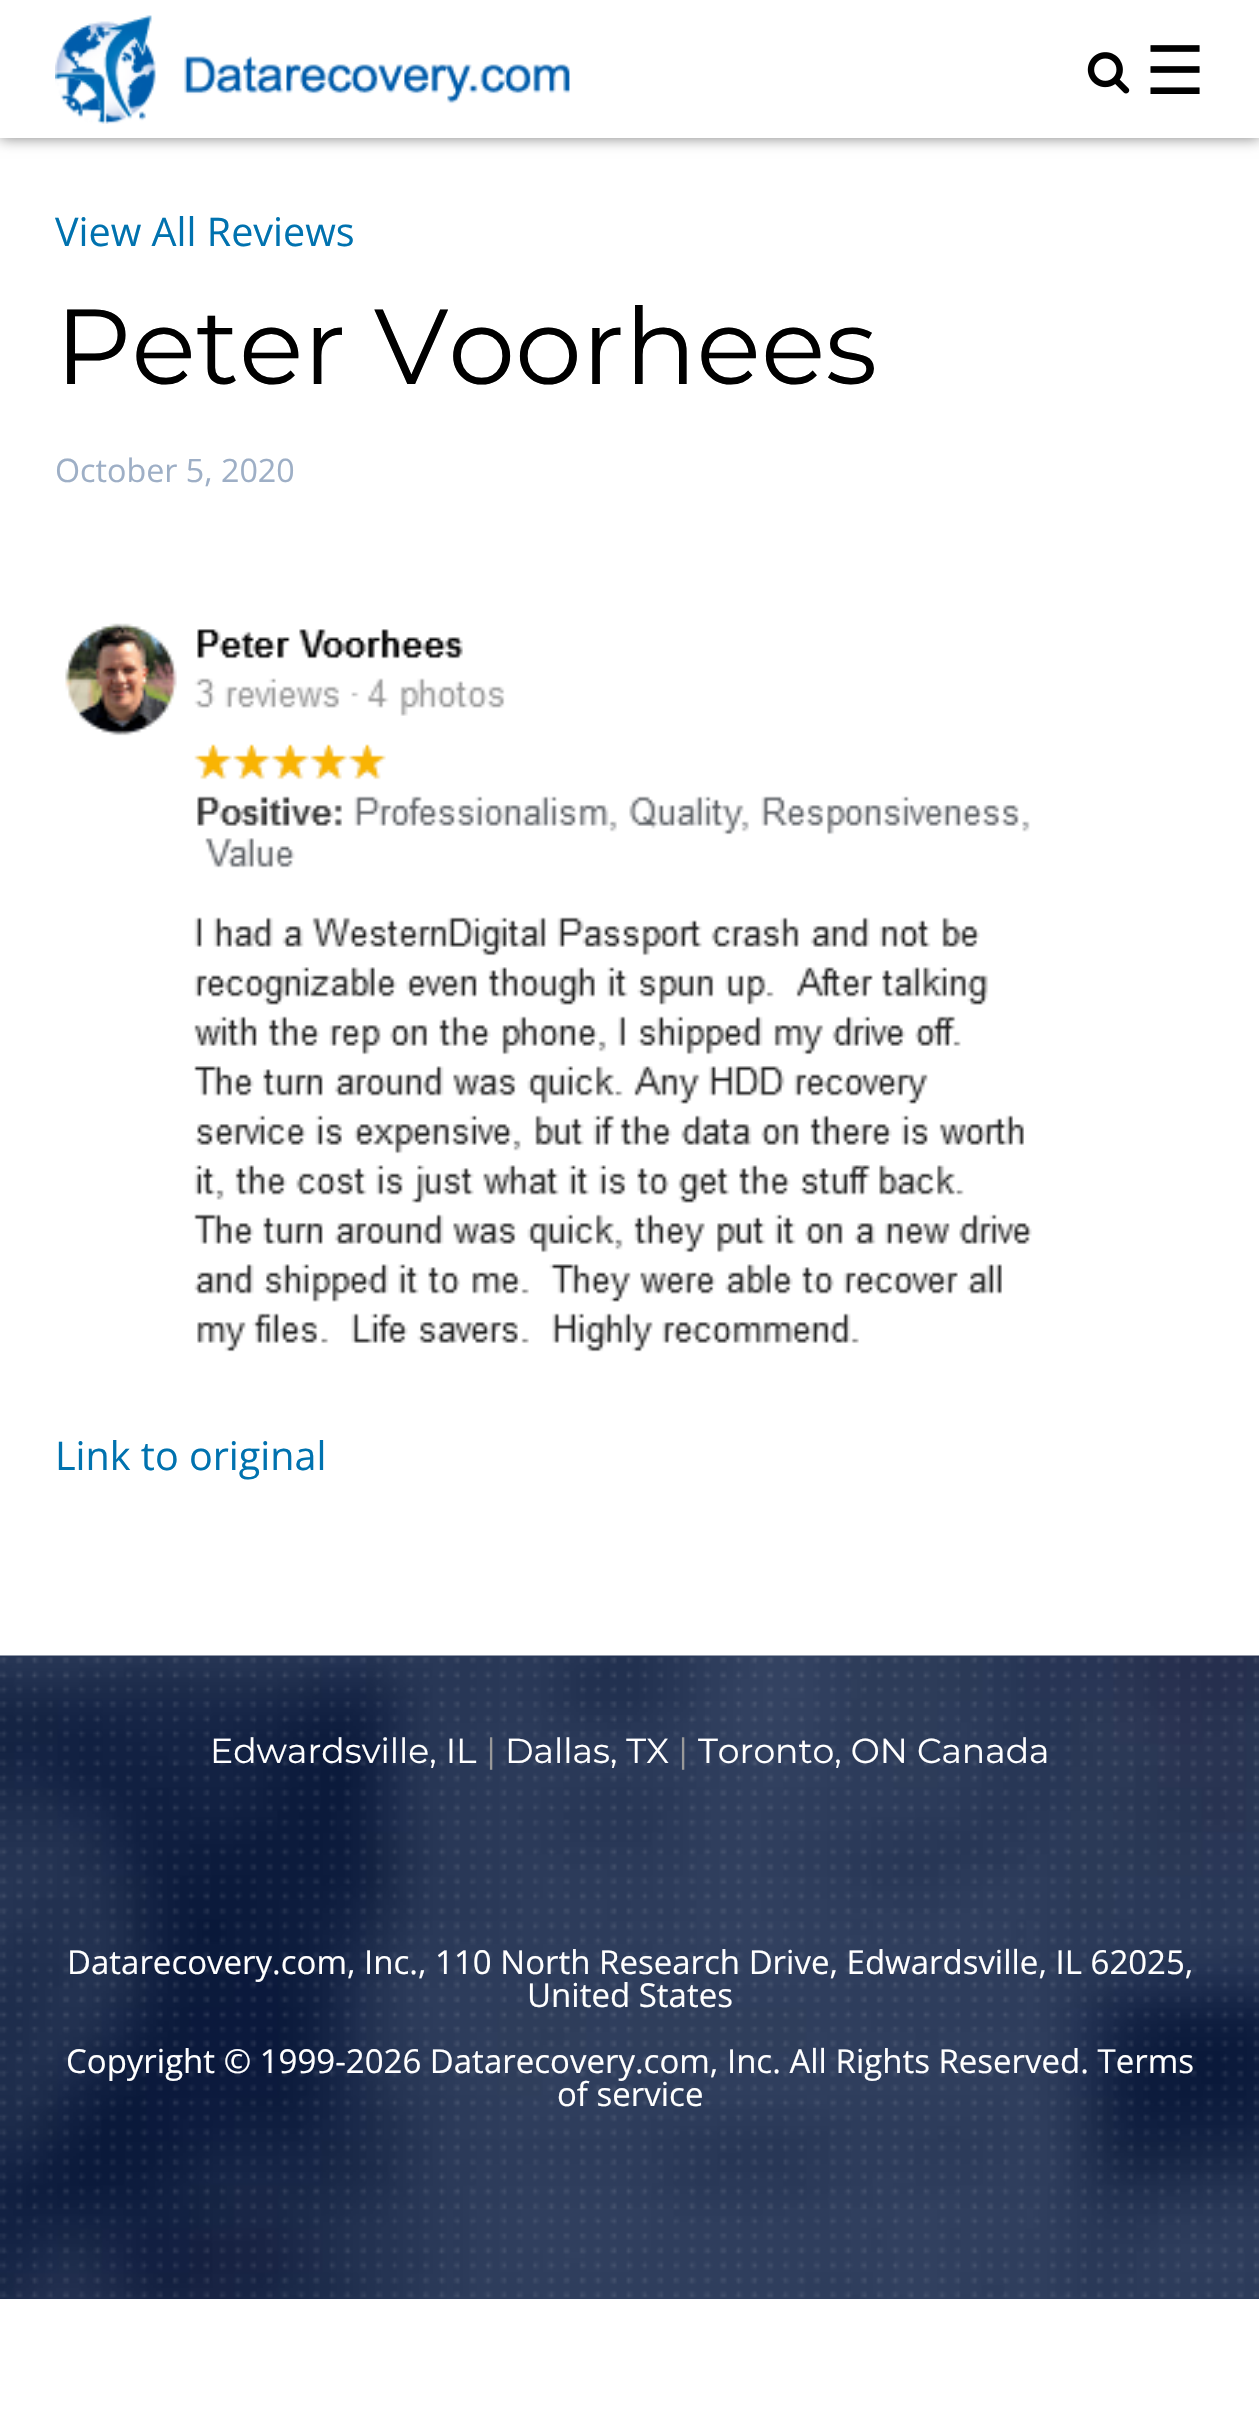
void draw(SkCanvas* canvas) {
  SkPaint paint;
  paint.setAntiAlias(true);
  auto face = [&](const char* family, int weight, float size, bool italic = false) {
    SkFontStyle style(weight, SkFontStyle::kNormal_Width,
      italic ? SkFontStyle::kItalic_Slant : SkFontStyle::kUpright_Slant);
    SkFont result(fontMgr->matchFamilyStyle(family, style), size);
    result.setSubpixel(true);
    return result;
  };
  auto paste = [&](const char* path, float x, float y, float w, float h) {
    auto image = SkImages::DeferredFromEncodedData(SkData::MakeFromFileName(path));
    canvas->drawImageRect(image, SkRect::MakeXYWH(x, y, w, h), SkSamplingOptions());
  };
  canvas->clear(0xffffffff);
  paint.setColor(0x80000000);
  paint.setMaskFilter(SkMaskFilter::MakeBlur(kNormal_SkBlurStyle, 7));
  canvas->drawRect(SkRect::MakeXYWH(0, 0, 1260, 138), paint);
  paint.setMaskFilter(nullptr);
  paint.setColor(0xffffffff);
  canvas->drawRect(SkRect::MakeXYWH(0, 0, 1259, 138), paint);
  paste("img/1.png", 55, 15, 515, 109);
  paste("img/2.png", 1087, 52, 43, 42);
  paste("img/3.png", 65, 623, 967, 729);
  paste("img/4.png", 0, 1655, 1259, 644);
  paste("img/5.png", 0, 1657, 1259, 641);
  auto f0 = face("DejaVu Sans", 400, 67);
  paint.setColor(0xff000000);
  canvas->drawString("☰", 1145, 94, f0, paint);
  auto f1 = face("Open Sans", 400, 39.5f);
  paint.setColor(0xff0072af);
  canvas->drawString("View All Reviews", 55, 246, f1, paint);
  auto f2 = face("Montserrat", 400, 106.5f);
  paint.setColor(0xff000000);
  canvas->drawString("Peter Voorhees", 55, 384, f2, paint);
  auto f3 = face("Open Sans", 400, 32.25f);
  paint.setColor(0xff9eafc6);
  canvas->drawString("October 5, 2020", 55, 482, f3, paint);
  paint.setColor(0xff0072af);
  canvas->drawString("Link to original", 55, 1470, f1, paint);
  auto f4 = face("Montserrat", 400, 34.6f);
  paint.setColor(0xffffffff);
  canvas->drawString("Edwardsville, IL", 210, 1763, f4, paint);
  paint.setColor(0xff999999);
  canvas->drawString("|", 486, 1763, f4, paint);
  paint.setColor(0xffffffff);
  canvas->drawString("Dallas, TX", 505, 1763, f4, paint);
  paint.setColor(0xff999999);
  canvas->drawString("|", 678, 1763, f4, paint);
  paint.setColor(0xffffffff);
  canvas->drawString("Toronto, ON Canada", 698, 1763, f4, paint);
  auto f5 = face("Open Sans", 400, 33);
  {
    const struct { const char* s; float x, y; } items[] = {
      {"Datarecovery.com, Inc., 110 North Research Drive, Edwardsville, IL 62025,", 67, 1974},
      {"United States", 527, 2007},
      {"Copyright © 1999-2026 Datarecovery.com, Inc. All Rights Reserved. Terms", 66, 2073},
      {"of service", 557, 2106},
    };
    for (auto [s, x, y] : items) {
      canvas->drawString(s, x, y, f5, paint);
    }
  }
}
